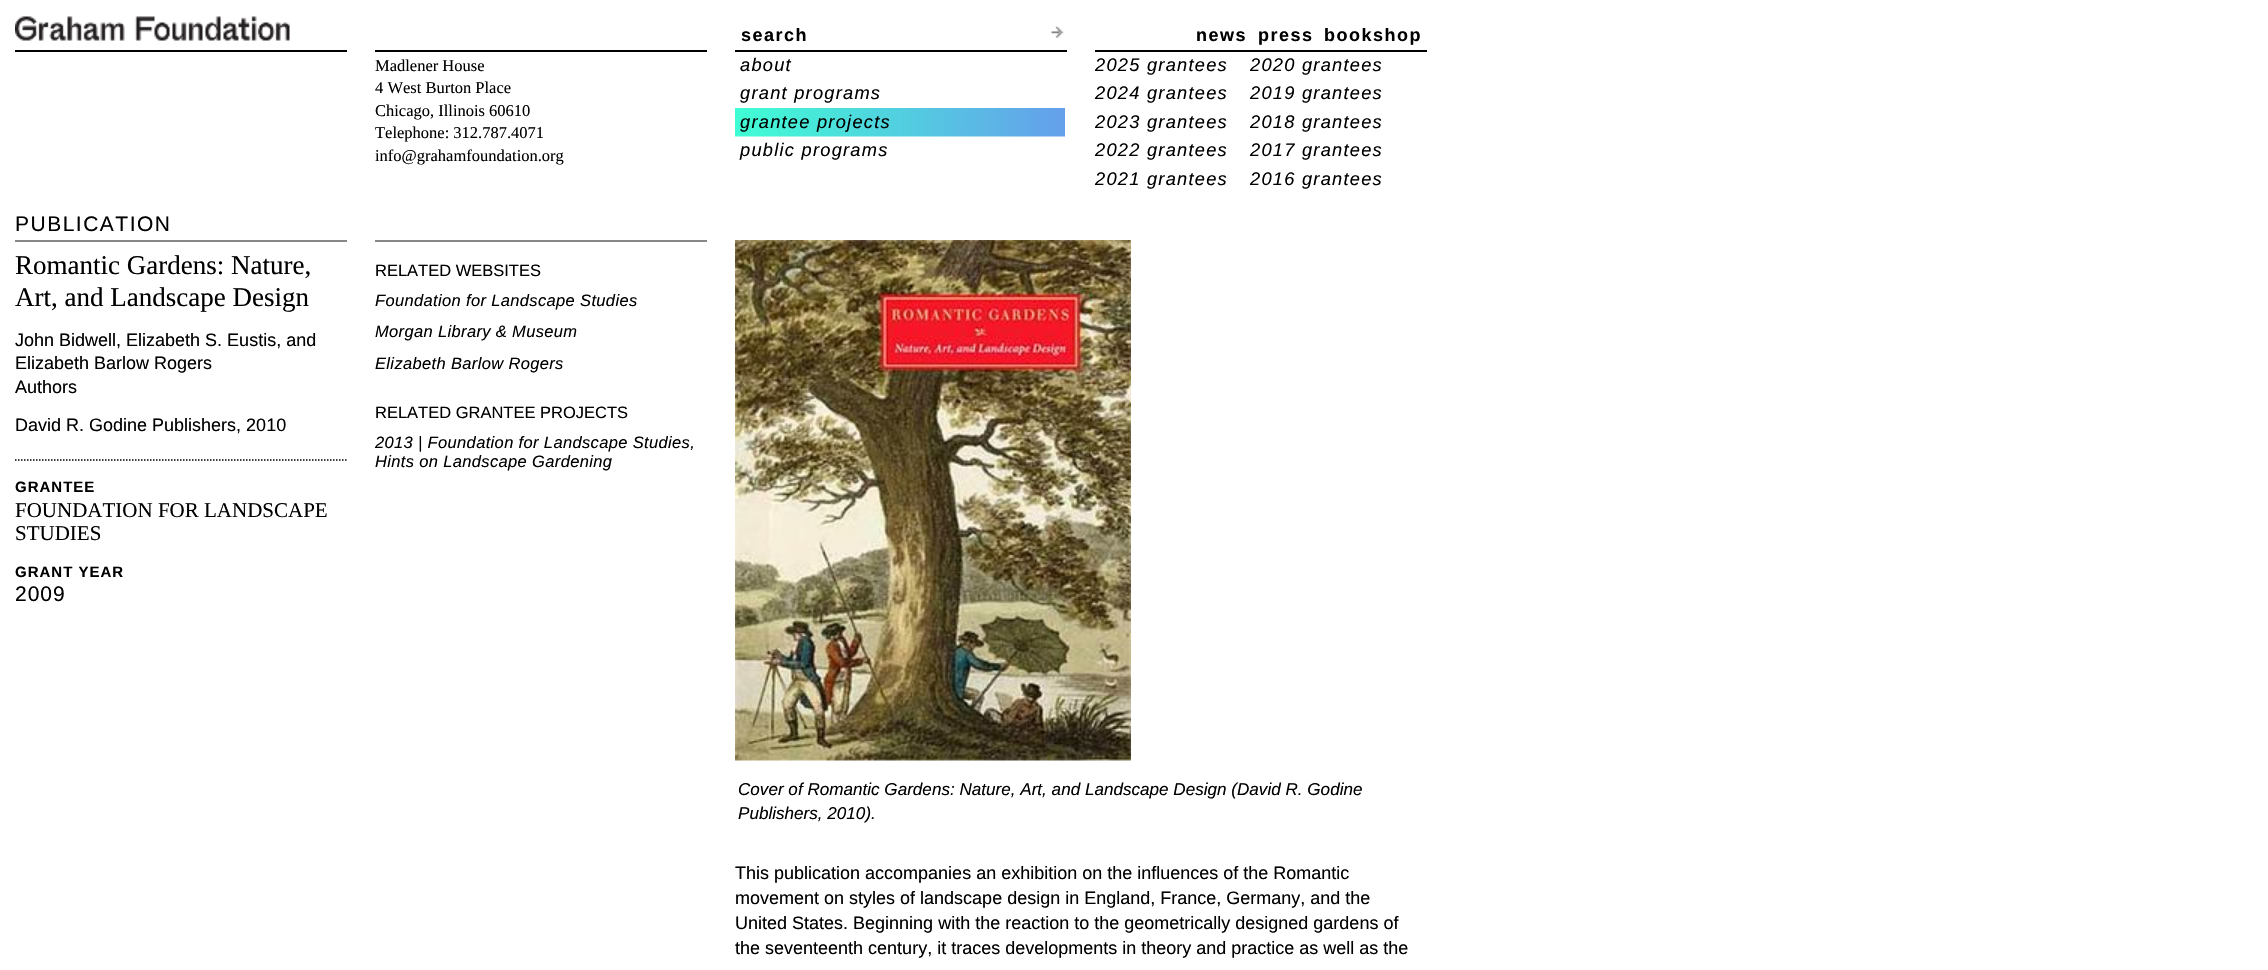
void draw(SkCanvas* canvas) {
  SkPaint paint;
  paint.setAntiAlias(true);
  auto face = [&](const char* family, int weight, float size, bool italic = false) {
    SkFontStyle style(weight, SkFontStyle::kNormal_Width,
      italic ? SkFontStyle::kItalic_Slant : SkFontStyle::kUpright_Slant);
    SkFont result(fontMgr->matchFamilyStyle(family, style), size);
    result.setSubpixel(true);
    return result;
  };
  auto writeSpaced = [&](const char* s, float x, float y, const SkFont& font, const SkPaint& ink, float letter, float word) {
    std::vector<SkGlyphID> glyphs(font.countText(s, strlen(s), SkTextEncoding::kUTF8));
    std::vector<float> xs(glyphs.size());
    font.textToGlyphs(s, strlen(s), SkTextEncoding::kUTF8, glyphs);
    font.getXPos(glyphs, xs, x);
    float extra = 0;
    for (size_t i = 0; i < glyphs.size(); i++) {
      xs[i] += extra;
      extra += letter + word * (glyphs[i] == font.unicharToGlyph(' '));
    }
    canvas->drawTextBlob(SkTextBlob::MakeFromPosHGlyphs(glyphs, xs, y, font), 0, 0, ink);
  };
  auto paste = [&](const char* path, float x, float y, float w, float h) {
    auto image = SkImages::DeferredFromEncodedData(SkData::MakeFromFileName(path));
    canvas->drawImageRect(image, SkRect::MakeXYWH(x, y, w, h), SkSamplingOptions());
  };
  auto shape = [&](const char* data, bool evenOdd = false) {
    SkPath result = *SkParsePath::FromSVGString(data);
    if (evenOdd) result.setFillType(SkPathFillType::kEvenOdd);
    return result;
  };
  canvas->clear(0xffffffff);
  paint.setColor(0xff000000);
  canvas->drawRect(SkRect::MakeXYWH(15, 50, 332, 2), paint);
  paste("img/1.png", 15, 16, 275, 25);
  canvas->drawRect(SkRect::MakeXYWH(735, 50, 332, 2), paint);
  paste("img/2.png", 1051, 26, 13, 12);
  canvas->drawRect(SkRect::MakeXYWH(1095, 50, 332, 2), paint);
  canvas->drawRect(SkRect::MakeXYWH(375, 50, 332, 2), paint);
  paste("img/3.png", 735, 108, 330, 29);
  paint.setColor(0xff888888);
  canvas->drawRect(SkRect::MakeXYWH(15, 240, 332, 2), paint);
  paint.setStroke(true);
  paint.setStrokeWidth(1.5f);
  paint.setColor(0xff000000);
  paint.setPathEffect(SkDashPathEffect::Make({{1.5f, 1.5f}}, 0));
  canvas->drawPath(shape("M15 460H346.5"), paint);
  paint.setPathEffect(nullptr);
  paint.setStroke(false);
  paint.setColor(0xff888888);
  canvas->drawRect(SkRect::MakeXYWH(375, 240, 332, 2), paint);
  paste("img/4.png", 735, 240, 396, 521);
  auto f0 = face("Liberation Sans", 700, 18);
  paint.setColor(0xff000000);
  {
    const struct { const char* s; float x, y; } items[] = {
      {"search", 741, 41},
      {"news", 1196, 41},
      {"press", 1258, 41},
      {"bookshop", 1324, 41},
    };
    for (auto [s, x, y] : items) {
      writeSpaced(s, x, y, f0, paint, 1.5f, 0);
    }
  }
  auto f1 = face("Liberation Serif", 400, 16.5f);
  {
    const struct { const char* s; float x, y; } items[] = {
      {"Madlener House", 375, 71},
      {"4 West Burton Place", 375, 93},
      {"Chicago, Illinois 60610", 375, 116},
      {"Telephone: 312.787.4071", 375, 138},
      {"info@grahamfoundation.org", 375, 161},
    };
    for (auto [s, x, y] : items) {
      canvas->drawString(s, x, y, f1, paint);
    }
  }
  auto f2 = face("Liberation Sans", 400, 18.25f, true);
  {
    const struct { const char* s; float x, y; } items[] = {
      {"about", 740, 71},
      {"grant programs", 740, 99},
      {"grantee projects", 740, 128},
      {"public programs", 740, 156},
      {"2025 grantees", 1095, 71},
      {"2020 grantees", 1250, 71},
      {"2024 grantees", 1095, 99},
      {"2019 grantees", 1250, 99},
      {"2023 grantees", 1095, 128},
      {"2018 grantees", 1250, 128},
      {"2022 grantees", 1095, 156},
      {"2017 grantees", 1250, 156},
      {"2021 grantees", 1095, 185},
      {"2016 grantees", 1250, 185},
    };
    for (auto [s, x, y] : items) {
      writeSpaced(s, x, y, f2, paint, 1.25f, 0);
    }
  }
  auto f3 = face("Liberation Sans", 400, 21);
  writeSpaced("PUBLICATION", 15, 231, f3, paint, 1.5f, 0);
  auto f4 = face("Liberation Serif", 400, 27);
  canvas->drawString("Romantic Gardens: Nature,", 15, 274, f4, paint);
  canvas->drawString("Art, and Landscape Design", 15, 306, f4, paint);
  auto f5 = face("Liberation Sans", 400, 18);
  {
    const struct { const char* s; float x, y; } items[] = {
      {"John Bidwell, Elizabeth S. Eustis, and", 15, 346},
      {"Elizabeth Barlow Rogers", 15, 369},
      {"Authors", 15, 393},
      {"David R. Godine Publishers, 2010", 15, 431},
    };
    for (auto [s, x, y] : items) {
      canvas->drawString(s, x, y, f5, paint);
    }
  }
  auto f6 = face("Liberation Sans", 700, 15);
  writeSpaced("GRANTEE", 15, 492, f6, paint, 1, 0);
  auto f7 = face("Liberation Serif", 400, 21);
  canvas->drawString("FOUNDATION FOR LANDSCAPE", 15, 517, f7, paint);
  canvas->drawString("STUDIES", 15, 540, f7, paint);
  writeSpaced("GRANT YEAR", 15, 577, f6, paint, 1, 0);
  writeSpaced("2009", 15, 601, f3, paint, 1, 0);
  auto f8 = face("Liberation Sans", 400, 16.5f);
  canvas->drawString("RELATED WEBSITES", 375, 276, f8, paint);
  auto f9 = face("Liberation Sans", 400, 16.5f, true);
  {
    const struct { const char* s; float x, y; } items[] = {
      {"Foundation for Landscape Studies", 375, 306},
      {"Morgan Library & Museum", 375, 337},
      {"Elizabeth Barlow Rogers", 375, 369},
    };
    for (auto [s, x, y] : items) {
      writeSpaced(s, x, y, f9, paint, 0.35f, 0);
    }
  }
  canvas->drawString("RELATED GRANTEE PROJECTS", 375, 418, f8, paint);
  writeSpaced("2013 | Foundation for Landscape Studies,", 375, 448, f9, paint, 0.35f, 0);
  writeSpaced("Hints on Landscape Gardening", 375, 467, f9, paint, 0.35f, 0);
  auto f10 = face("Liberation Sans", 400, 17.1f, true);
  canvas->drawString("Cover of Romantic Gardens: Nature, Art, and Landscape Design (David R. Godine", 738, 795, f10, paint);
  canvas->drawString("Publishers, 2010).", 738, 819, f10, paint);
  {
    const struct { const char* s; float x, y; } items[] = {
      {"This publication accompanies an exhibition on the influences of the Romantic", 735, 879},
      {"movement on styles of landscape design in England, France, Germany, and the", 735, 904},
      {"United States. Beginning with the reaction to the geometrically designed gardens of", 735, 929},
      {"the seventeenth century, it traces developments in theory and practice as well as the", 735, 954},
    };
    for (auto [s, x, y] : items) {
      canvas->drawString(s, x, y, f5, paint);
    }
  }
}
